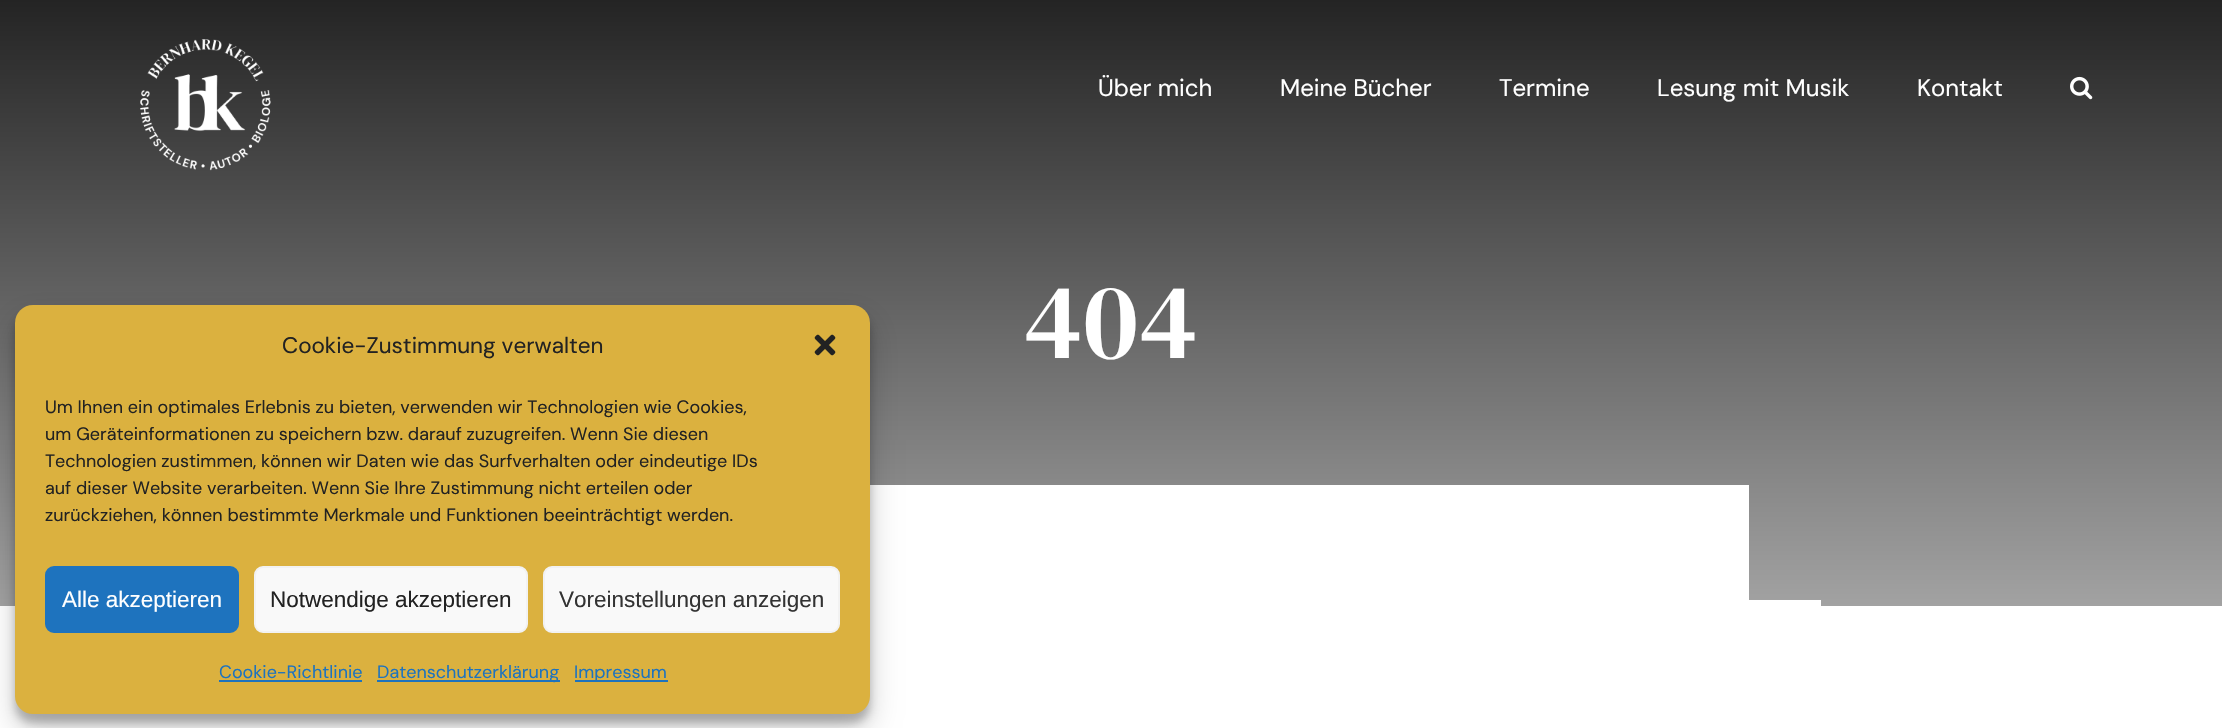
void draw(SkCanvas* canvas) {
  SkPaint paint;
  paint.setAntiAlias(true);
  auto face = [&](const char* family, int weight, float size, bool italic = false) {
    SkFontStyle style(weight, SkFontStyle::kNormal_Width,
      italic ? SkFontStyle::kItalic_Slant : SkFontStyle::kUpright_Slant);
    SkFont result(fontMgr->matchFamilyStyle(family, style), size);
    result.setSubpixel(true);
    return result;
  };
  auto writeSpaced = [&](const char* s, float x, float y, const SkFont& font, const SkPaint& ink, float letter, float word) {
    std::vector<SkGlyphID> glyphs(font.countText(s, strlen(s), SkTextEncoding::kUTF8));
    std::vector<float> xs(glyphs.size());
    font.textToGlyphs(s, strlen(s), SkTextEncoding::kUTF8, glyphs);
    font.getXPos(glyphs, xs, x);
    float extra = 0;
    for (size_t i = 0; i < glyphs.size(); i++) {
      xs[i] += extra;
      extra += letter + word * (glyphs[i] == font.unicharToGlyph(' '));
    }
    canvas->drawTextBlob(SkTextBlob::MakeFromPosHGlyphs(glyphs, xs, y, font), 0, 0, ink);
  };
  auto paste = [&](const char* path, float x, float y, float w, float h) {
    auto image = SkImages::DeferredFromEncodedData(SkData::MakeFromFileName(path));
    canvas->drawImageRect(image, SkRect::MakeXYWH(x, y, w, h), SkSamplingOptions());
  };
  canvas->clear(0xffffffff);
  {
    const SkColor colors[] = {0xff242424, 0xffa2a2a2};
    const float stops[] = {0, 1};
    const SkPoint ends[] = {{1112, 0}, {1112, 606}};
    paint.setShader(SkGradientShader::MakeLinear(ends, colors, stops, 2, SkTileMode::kClamp));
    paint.setAlpha(255);
  }
  canvas->drawRect(SkRect::MakeXYWH(0, 0, 2222, 606), paint);
  paste("img/1.png", 140, 39, 131, 132);
  paste("img/2.png", 2070, 76, 23, 24);
  paint.setShader(nullptr);
  paint.setColor(0xffffffff);
  canvas->drawRect(SkRect::MakeXYWH(870, 485, 879, 115), paint);
  canvas->drawRect(SkRect::MakeXYWH(402, 600, 1419, 6), paint);
  paint.setColor(0x3b000000);
  paint.setMaskFilter(SkMaskFilter::MakeBlur(kNormal_SkBlurStyle, 4.5f));
  canvas->drawRoundRect(SkRect::MakeXYWH(15, 314, 855, 409), 18, 18, paint);
  paint.setMaskFilter(nullptr);
  paint.setColor(0x30000000);
  paint.setMaskFilter(SkMaskFilter::MakeBlur(kNormal_SkBlurStyle, 15));
  canvas->drawRoundRect(SkRect::MakeXYWH(15, 320, 855, 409), 18, 18, paint);
  paint.setMaskFilter(nullptr);
  paint.setColor(0xffdbb13f);
  canvas->drawRoundRect(SkRect::MakeXYWH(15, 305, 855, 409), 18, 18, paint);
  paste("img/3.png", 814, 334, 22, 22);
  paint.setColor(0xff1e73be);
  canvas->drawRoundRect(SkRect::MakeXYWH(46, 567, 192, 65), 8, 8, paint);
  paint.setStroke(true);
  paint.setStrokeWidth(2);
  canvas->drawRoundRect(SkRect::MakeXYWH(46, 567, 192, 65), 8, 8, paint);
  paint.setStroke(false);
  paint.setColor(0xfff9f9f9);
  canvas->drawRoundRect(SkRect::MakeXYWH(255, 567, 272, 65), 8, 8, paint);
  paint.setStroke(true);
  paint.setColor(0xfff2f2f2);
  canvas->drawRoundRect(SkRect::MakeXYWH(255, 567, 272, 65), 8, 8, paint);
  paint.setStroke(false);
  paint.setColor(0xfff9f9f9);
  canvas->drawRoundRect(SkRect::MakeXYWH(544, 567, 295, 65), 8, 8, paint);
  paint.setStroke(true);
  paint.setColor(0xfff2f2f2);
  canvas->drawRoundRect(SkRect::MakeXYWH(544, 567, 295, 65), 8, 8, paint);
  paint.setStroke(false);
  {
    const struct { float x, y, w, h; SkColor color; } items[] = {
      {219, 680, 143, 2, 0xff1e73be},
      {377, 680, 183, 2, 0xff1e73be},
      {575, 680, 93, 2, 0xff1e73be},
    };
    for (auto [x, y, w, h, color] : items) {
      paint.setColor(color);
      canvas->drawRect(SkRect::MakeXYWH(x, y, w, h), paint);
    }
  }
  auto f0 = face("DM Sans", 400, 24);
  paint.setColor(0xffffffff);
  {
    const struct { const char* s; float x, y; } items[] = {
      {"Über mich", 1098, 96},
      {"Meine Bücher", 1280, 96},
      {"Termine", 1499, 96},
      {"Lesung mit Musik", 1657, 96},
      {"Kontakt", 1917, 96},
    };
    for (auto [s, x, y] : items) {
      canvas->drawString(s, x, y, f0, paint);
    }
  }
  auto f1 = face("DM Serif Display", 400, 108);
  writeSpaced("404", 1024, 358, f1, paint, 1.5f, 0);
  auto f2 = face("DM Sans", 400, 22.5f);
  paint.setColor(0xff222222);
  canvas->drawString("Cookie-Zustimmung verwalten", 282, 353, f2, paint);
  auto f3 = face("DM Sans", 400, 18);
  {
    const struct { const char* s; float x, y; } items[] = {
      {"Um Ihnen ein optimales Erlebnis zu bieten, verwenden wir Technologien wie Cookies,", 45, 413},
      {"um Geräteinformationen zu speichern bzw. darauf zuzugreifen. Wenn Sie diesen", 45, 440},
      {"Technologien zustimmen, können wir Daten wie das Surfverhalten oder eindeutige IDs", 45, 467},
      {"auf dieser Website verarbeiten. Wenn Sie Ihre Zustimmung nicht erteilen oder", 45, 494},
      {"zurückziehen, können bestimmte Merkmale und Funktionen beeinträchtigt werden.", 45, 521},
    };
    for (auto [s, x, y] : items) {
      canvas->drawString(s, x, y, f3, paint);
    }
  }
  auto f4 = face("Liberation Sans", 400, 22.5f);
  paint.setColor(0xffffffff);
  canvas->drawString("Alle akzeptieren", 62, 607, f4, paint);
  paint.setColor(0xff222222);
  canvas->drawString("Notwendige akzeptieren", 270, 607, f4, paint);
  paint.setColor(0xff333333);
  canvas->drawString("Voreinstellungen anzeigen", 559, 607, f4, paint);
  paint.setColor(0xff1e73be);
  {
    const struct { const char* s; float x, y; } items[] = {
      {"Cookie-Richtlinie", 219, 678},
      {"Datenschutzerklärung", 377, 678},
      {"Impressum", 574, 678},
    };
    for (auto [s, x, y] : items) {
      canvas->drawString(s, x, y, f3, paint);
    }
  }
}
